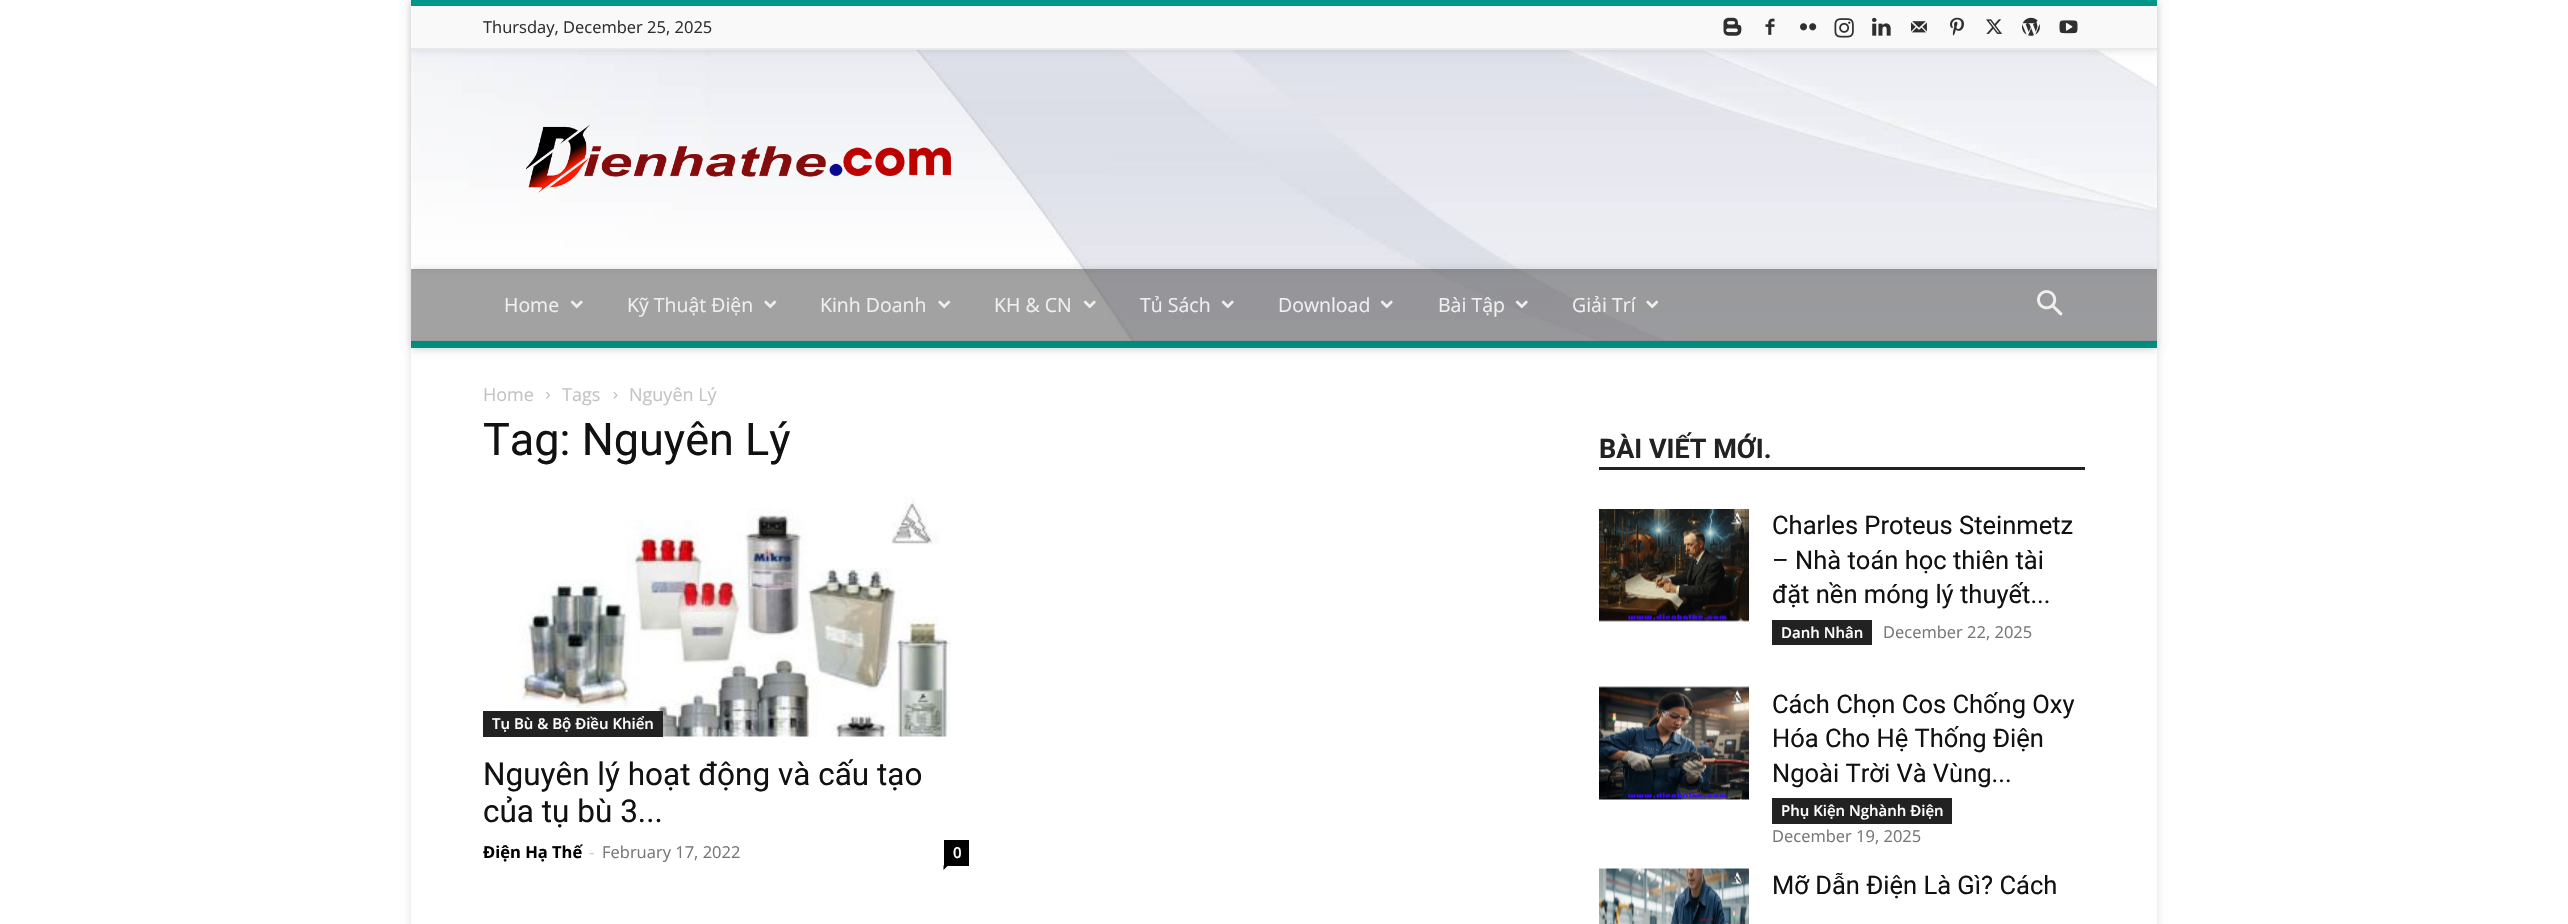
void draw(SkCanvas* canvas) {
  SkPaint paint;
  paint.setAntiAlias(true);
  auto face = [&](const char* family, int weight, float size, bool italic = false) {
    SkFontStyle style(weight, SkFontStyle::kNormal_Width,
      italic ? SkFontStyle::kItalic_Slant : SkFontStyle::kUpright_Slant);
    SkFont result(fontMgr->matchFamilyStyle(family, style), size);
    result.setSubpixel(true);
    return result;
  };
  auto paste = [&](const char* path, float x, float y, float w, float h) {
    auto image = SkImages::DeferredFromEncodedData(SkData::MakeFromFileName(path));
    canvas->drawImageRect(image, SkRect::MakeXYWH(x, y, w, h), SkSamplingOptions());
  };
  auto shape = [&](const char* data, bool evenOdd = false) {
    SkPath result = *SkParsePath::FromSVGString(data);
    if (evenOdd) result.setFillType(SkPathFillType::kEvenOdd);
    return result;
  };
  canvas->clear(0xffffffff);
  paint.setColor(0x1f000000);
  paint.setMaskFilter(SkMaskFilter::MakeBlur(kNormal_SkBlurStyle, 4));
  canvas->drawRect(SkRect::MakeXYWH(411, 0, 1746, 348), paint);
  paint.setMaskFilter(nullptr);
  canvas->save();
  canvas->clipPath(shape("M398 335H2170V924H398ZM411 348H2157V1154H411Z", true), true);
  paint.setMaskFilter(SkMaskFilter::MakeBlur(kNormal_SkBlurStyle, 4));
  canvas->drawRect(SkRect::MakeXYWH(411, 348, 1746, 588), paint);
  paint.setMaskFilter(nullptr);
  canvas->restore();
  paste("img/1.png", 411, 50, 1746, 291);
  paint.setMaskFilter(SkMaskFilter::MakeBlur(kNormal_SkBlurStyle, 4));
  canvas->drawRect(SkRect::MakeXYWH(411, 0, 1746, 50), paint);
  paint.setMaskFilter(nullptr);
  canvas->save();
  canvas->clipPath(shape("M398 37H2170V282H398ZM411 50H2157V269H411Z", true), true);
  paint.setMaskFilter(SkMaskFilter::MakeBlur(kNormal_SkBlurStyle, 4));
  canvas->drawRect(SkRect::MakeXYWH(411, 50, 1746, 219), paint);
  paint.setMaskFilter(nullptr);
  canvas->restore();
  {
    const struct { float x, y, w, h; SkColor color; } items[] = {
      {411, 6, 1746, 42, 0xfff9f9f9},
      {411, 0, 1746, 6, 0xff009688},
      {411, 48, 1746, 2, 0xffe9e9e9},
    };
    for (auto [x, y, w, h, color] : items) {
      paint.setColor(color);
      canvas->drawRect(SkRect::MakeXYWH(x, y, w, h), paint);
    }
  }
  paste("img/2.png", 1723, 17, 19, 19);
  paste("img/3.png", 1765, 18, 10, 17);
  paste("img/4.png", 1800, 23, 17, 8);
  paste("img/5.png", 1834, 18, 20, 20);
  paste("img/6.png", 1872, 17, 19, 19);
  paste("img/7.png", 1911, 21, 16, 12);
  paste("img/8.png", 1950, 17, 14, 19);
  paste("img/9.png", 1986, 19, 16, 15);
  paste("img/10.png", 2022, 17, 18, 19);
  paste("img/11.png", 2059, 20, 19, 14);
  paste("img/12.png", 526, 124, 425, 69);
  canvas->save();
  canvas->clipPath(shape("M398 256H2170V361H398ZM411 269H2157V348H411Z", true), true);
  paint.setColor(0x1f000000);
  paint.setMaskFilter(SkMaskFilter::MakeBlur(kNormal_SkBlurStyle, 4));
  canvas->drawRect(SkRect::MakeXYWH(411, 269, 1746, 79), paint);
  paint.setMaskFilter(nullptr);
  canvas->restore();
  paint.setColor(0x73303030);
  canvas->drawRect(SkRect::MakeXYWH(411, 269, 1746, 72), paint);
  paste("img/13.png", 570, 300, 13, 9);
  paste("img/14.png", 764, 300, 13, 9);
  paste("img/14.png", 938, 300, 13, 9);
  paste("img/15.png", 1083, 300, 13, 9);
  paste("img/16.png", 1221, 300, 13, 9);
  paste("img/16.png", 1380, 300, 13, 9);
  paste("img/17.png", 1515, 300, 13, 9);
  paste("img/18.png", 1646, 300, 13, 9);
  paste("img/19.png", 2037, 290, 26, 26);
  paint.setColor(0xff009688);
  canvas->drawRect(SkRect::MakeXYWH(411, 341, 1746, 7), paint);
  paste("img/20.png", 411, 340, 1746, 8);
  paste("img/21.png", 546, 392, 4, 7);
  paste("img/22.png", 613, 392, 5, 7);
  paste("img/23.png", 495, 496, 456, 241);
  paint.setColor(0xff222222);
  canvas->drawRect(SkRect::MakeXYWH(483, 711, 180, 26), paint);
  paint.setColor(0xff000000);
  canvas->drawRect(SkRect::MakeXYWH(944, 840, 25, 26), paint);
  canvas->drawPath(shape("M943.5 865.5H948L943.5 870Z"), paint);
  paint.setColor(0xff222222);
  canvas->drawRect(SkRect::MakeXYWH(1599, 467, 486, 3), paint);
  paste("img/24.png", 1599, 509, 150, 113);
  canvas->drawRect(SkRect::MakeXYWH(1772, 620, 100, 25), paint);
  paste("img/25.png", 1599, 686, 150, 114);
  canvas->drawRect(SkRect::MakeXYWH(1772, 798, 180, 26), paint);
  paste("img/26.png", 1599, 868, 150, 56);
  auto f0 = face("Open Sans", 400, 16.5f);
  paint.setColor(0xff2f2f2f);
  canvas->drawString("Thursday, December 25, 2025", 483, 33, f0, paint);
  auto f1 = face("Open Sans", 400, 19.5f);
  paint.setColor(0xffefefef);
  {
    const struct { const char* s; float x, y; } items[] = {
      {"Home", 504, 312},
      {"Kỹ Thuật Điện", 627, 312},
      {"Kinh Doanh", 820, 312},
      {"KH & CN", 994, 312},
      {"Tủ Sách", 1140, 312},
      {"Download", 1278, 312},
      {"Bài Tập", 1438, 312},
      {"Giải Trí", 1572, 312},
    };
    for (auto [s, x, y] : items) {
      canvas->drawString(s, x, y, f1, paint);
    }
  }
  auto f2 = face("Open Sans", 400, 18);
  paint.setColor(0xffc3c3c3);
  {
    const struct { const char* s; float x, y; } items[] = {
      {"Home", 483, 401},
      {"Tags", 562, 401},
      {"Nguyên Lý", 629, 401},
    };
    for (auto [s, x, y] : items) {
      canvas->drawString(s, x, y, f2, paint);
    }
  }
  auto f3 = face("Roboto", 400, 45);
  paint.setColor(0xff111111);
  canvas->drawString("Tag: Nguyên Lý", 483, 455, f3, paint);
  auto f4 = face("Open Sans", 600, 15);
  paint.setColor(0xffffffff);
  canvas->drawString("Tụ Bù & Bộ Điều Khiển", 492, 729, f4, paint);
  auto f5 = face("Roboto", 400, 31.5f);
  paint.setColor(0xff111111);
  canvas->drawString("Nguyên lý hoạt động và cấu tạo", 483, 785, f5, paint);
  canvas->drawString("của tụ bù 3...", 483, 822, f5, paint);
  auto f6 = face("Open Sans", 700, 16.5f);
  paint.setColor(0xff000000);
  canvas->drawString("Điện Hạ Thế", 483, 858, f6, paint);
  paint.setColor(0xffcccccc);
  canvas->drawString("-", 589, 858, f0, paint);
  paint.setColor(0xff767676);
  canvas->drawString("February 17, 2022", 602, 858, f0, paint);
  paint.setColor(0xffffffff);
  canvas->drawString("0", 953, 858, f4, paint);
  auto f7 = face("Roboto", 700, 27);
  paint.setColor(0xff222222);
  canvas->drawString("BÀI VIẾT MỚI.", 1599, 458, f7, paint);
  auto f8 = face("Roboto", 400, 25.5f);
  paint.setColor(0xff111111);
  {
    const struct { const char* s; float x, y; } items[] = {
      {"Charles Proteus Steinmetz", 1772, 534},
      {"– Nhà toán học thiên tài", 1772, 569},
      {"đặt nền móng lý thuyết...", 1772, 603},
    };
    for (auto [s, x, y] : items) {
      canvas->drawString(s, x, y, f8, paint);
    }
  }
  paint.setColor(0xffffffff);
  canvas->drawString("Danh Nhân", 1781, 638, f4, paint);
  paint.setColor(0xff767676);
  canvas->drawString("December 22, 2025", 1883, 638, f0, paint);
  paint.setColor(0xff111111);
  {
    const struct { const char* s; float x, y; } items[] = {
      {"Cách Chọn Cos Chống Oxy", 1772, 713},
      {"Hóa Cho Hệ Thống Điện", 1772, 747},
      {"Ngoài Trời Và Vùng...", 1772, 782},
    };
    for (auto [s, x, y] : items) {
      canvas->drawString(s, x, y, f8, paint);
    }
  }
  paint.setColor(0xffffffff);
  canvas->drawString("Phụ Kiện Nghành Điện", 1781, 816, f4, paint);
  paint.setColor(0xff767676);
  canvas->drawString("December 19, 2025", 1772, 842, f0, paint);
  paint.setColor(0xff111111);
  canvas->drawString("Mỡ Dẫn Điện Là Gì? Cách", 1772, 894, f8, paint);
}
